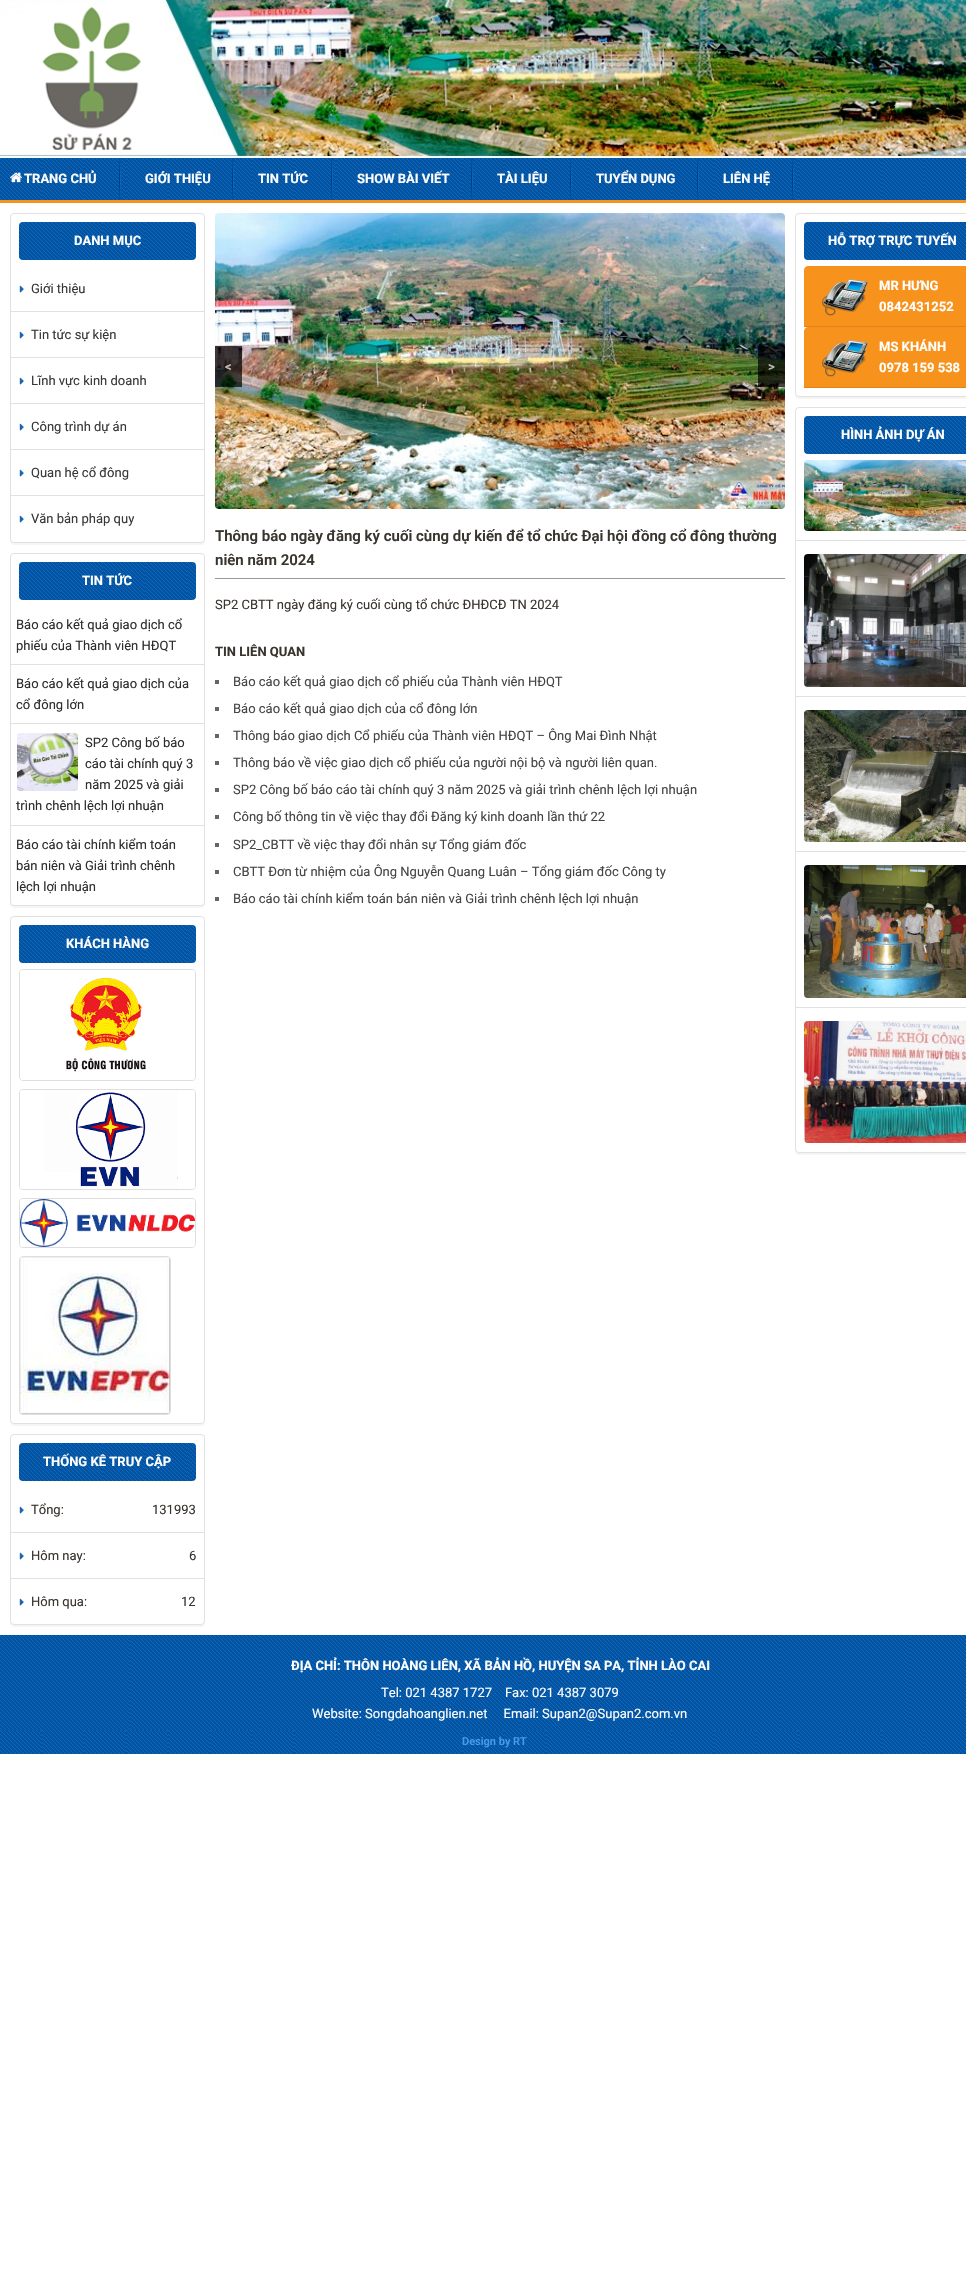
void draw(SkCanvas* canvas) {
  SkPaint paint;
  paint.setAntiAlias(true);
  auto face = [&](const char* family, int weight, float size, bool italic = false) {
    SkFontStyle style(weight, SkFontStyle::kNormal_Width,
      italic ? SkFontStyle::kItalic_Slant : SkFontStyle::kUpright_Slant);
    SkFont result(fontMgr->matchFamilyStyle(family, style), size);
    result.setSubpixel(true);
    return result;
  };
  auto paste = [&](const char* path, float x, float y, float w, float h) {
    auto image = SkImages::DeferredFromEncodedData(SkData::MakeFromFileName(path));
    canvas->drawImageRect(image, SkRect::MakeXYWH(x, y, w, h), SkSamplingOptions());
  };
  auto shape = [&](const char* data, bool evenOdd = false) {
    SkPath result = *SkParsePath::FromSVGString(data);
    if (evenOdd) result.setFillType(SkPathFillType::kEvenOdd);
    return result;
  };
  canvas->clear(0xffffffff);
  paste("img/1.png", 0, 0, 966, 158);
  paste("img/2.png", 0, 158, 966, 45);
  paste("img/3.png", 119, 158, 2, 41);
  paste("img/4.png", 10, 172, 12, 11);
  paste("img/5.png", 232, 160, 2, 38);
  paste("img/6.png", 331, 159, 2, 41);
  paste("img/6.png", 471, 159, 2, 41);
  paste("img/7.png", 570, 158, 2, 42);
  paste("img/6.png", 697, 159, 2, 41);
  paste("img/7.png", 792, 158, 2, 42);
  paint.setColor(0xfff5f5f5);
  canvas->drawPath(shape("M10 539V541C10 543 12 545 14 545H201C203 545 205 543 205 541V539C205 541 203 543 201 543H14C12 543 10 541 10 539Z"), paint);
  paint.setStroke(true);
  paint.setStrokeWidth(1);
  paint.setColor(0xffe1e1e1);
  canvas->drawRoundRect(SkRect::MakeXYWH(10.5f, 213.5f, 194, 329), 3.5f, 3.5f, paint);
  paste("img/8.png", 19, 222, 177, 38);
  paint.setStroke(false);
  canvas->drawRect(SkRect::MakeXYWH(11, 311, 193, 1), paint);
  paste("img/9.png", 19, 285, 5, 8);
  canvas->drawRect(SkRect::MakeXYWH(11, 357, 193, 1), paint);
  paste("img/9.png", 19, 331, 5, 8);
  canvas->drawRect(SkRect::MakeXYWH(11, 403, 193, 1), paint);
  paste("img/9.png", 19, 377, 5, 8);
  canvas->drawRect(SkRect::MakeXYWH(11, 449, 193, 1), paint);
  paste("img/9.png", 19, 423, 5, 8);
  canvas->drawRect(SkRect::MakeXYWH(11, 495, 193, 1), paint);
  paste("img/9.png", 19, 469, 5, 8);
  paste("img/9.png", 19, 515, 5, 8);
  paint.setColor(0xfff5f5f5);
  canvas->drawPath(shape("M10 902V904C10 906 12 908 14 908H201C203 908 205 906 205 904V902C205 904 203 906 201 906H14C12 906 10 904 10 902Z"), paint);
  paint.setStroke(true);
  paint.setColor(0xffe1e1e1);
  canvas->drawRoundRect(SkRect::MakeXYWH(10.5f, 553.5f, 194, 352), 3.5f, 3.5f, paint);
  paste("img/8.png", 19, 562, 177, 38);
  paint.setStroke(false);
  {
    const struct { float x, y, w, h; SkColor color; } items[] = {
      {11, 664, 193, 1, 0xffe1e1e1},
      {11, 723, 193, 1, 0xffe1e1e1},
      {11, 825, 193, 1, 0xffe1e1e1},
    };
    for (auto [x, y, w, h, color] : items) {
      paint.setColor(color);
      canvas->drawRect(SkRect::MakeXYWH(x, y, w, h), paint);
    }
  }
  paste("img/10.png", 17, 733, 61, 58);
  paint.setColor(0xfff5f5f5);
  canvas->drawPath(shape("M10 1420V1422C10 1424 12 1426 14 1426H201C203 1426 205 1424 205 1422V1420C205 1422 203 1424 201 1424H14C12 1424 10 1422 10 1420Z"), paint);
  paint.setStroke(true);
  paint.setColor(0xffe1e1e1);
  canvas->drawRoundRect(SkRect::MakeXYWH(10.5f, 916.5f, 194, 507), 3.5f, 3.5f, paint);
  paste("img/8.png", 19, 925, 177, 38);
  paint.setColor(0xffdedede);
  canvas->drawRoundRect(SkRect::MakeXYWH(19.5f, 969.5f, 176, 111), 3.5f, 3.5f, paint);
  paste("img/11.png", 20, 970, 175, 110);
  canvas->drawRoundRect(SkRect::MakeXYWH(19.5f, 1089.5f, 176, 100), 3.5f, 3.5f, paint);
  paste("img/12.png", 20, 1090, 175, 99);
  canvas->drawRoundRect(SkRect::MakeXYWH(19.5f, 1198.5f, 176, 49), 3.5f, 3.5f, paint);
  paste("img/13.png", 20, 1199, 175, 48);
  canvas->drawRoundRect(SkRect::MakeXYWH(19.5f, 1256.5f, 151, 158), 3.5f, 3.5f, paint);
  paste("img/14.png", 20, 1257, 150, 157);
  paint.setStroke(false);
  paint.setColor(0xfff5f5f5);
  canvas->drawPath(shape("M10 1621V1623C10 1625 12 1627 14 1627H201C203 1627 205 1625 205 1623V1621C205 1623 203 1625 201 1625H14C12 1625 10 1623 10 1621Z"), paint);
  paint.setStroke(true);
  paint.setColor(0xffe1e1e1);
  canvas->drawRoundRect(SkRect::MakeXYWH(10.5f, 1434.5f, 194, 190), 3.5f, 3.5f, paint);
  paste("img/8.png", 19, 1443, 177, 38);
  paint.setStroke(false);
  canvas->drawRect(SkRect::MakeXYWH(11, 1532, 193, 1), paint);
  paste("img/9.png", 19, 1506, 5, 8);
  canvas->drawRect(SkRect::MakeXYWH(11, 1578, 193, 1), paint);
  paste("img/9.png", 19, 1552, 5, 8);
  paste("img/9.png", 19, 1598, 5, 8);
  paste("img/15.png", 215, 213, 570, 296);
  {
    const struct { float x, y, w, h; SkColor color; } items[] = {
      {215, 346, 27, 41, 0xb3000000},
      {758, 346, 27, 41, 0xb3000000},
      {215, 578, 570, 1, 0xff999999},
      {215, 680, 4, 4, 0xff666666},
      {215, 707, 4, 4, 0xff666666},
      {215, 734, 4, 4, 0xff666666},
      {215, 761, 4, 4, 0xff666666},
      {215, 788, 4, 4, 0xff666666},
      {215, 815, 4, 4, 0xff666666},
      {215, 843, 4, 4, 0xff666666},
      {215, 870, 4, 4, 0xff666666},
      {215, 897, 4, 4, 0xff666666},
    };
    for (auto [x, y, w, h, color] : items) {
      paint.setColor(color);
      canvas->drawRect(SkRect::MakeXYWH(x, y, w, h), paint);
    }
  }
  paint.setColor(0xfff5f5f5);
  canvas->drawPath(shape("M795 393V395C795 397 797 399 799 399H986C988 399 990 397 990 395V393C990 395 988 397 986 397H799C797 397 795 395 795 393Z"), paint);
  paint.setStroke(true);
  paint.setColor(0xffe1e1e1);
  canvas->drawRoundRect(SkRect::MakeXYWH(795.5f, 213.5f, 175, 183), 3.5f, 3.5f, paint);
  paste("img/16.png", 804, 222, 162, 38);
  paint.setStroke(false);
  paint.setColor(0xfff7931d);
  canvas->drawPath(shape("M808 266H966C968 266 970 268 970 270V327H804V270C804 268 806 266 808 266Z"), paint);
  paint.setColor(0xffdf8418);
  canvas->drawRect(SkRect::MakeXYWH(804, 326, 162, 1), paint);
  paste("img/17.png", 822, 279, 46, 37);
  paint.setColor(0xfff7931d);
  canvas->drawPath(shape("M808 327H966C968 327 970 329 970 331V388H804V331C804 329 806 327 808 327Z"), paint);
  paint.setColor(0xffdf8418);
  canvas->drawRect(SkRect::MakeXYWH(804, 387, 162, 1), paint);
  paste("img/17.png", 822, 340, 46, 37);
  paint.setColor(0xfff5f5f5);
  canvas->drawPath(shape("M795 1149V1151C795 1153 797 1155 799 1155H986C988 1155 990 1153 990 1151V1149C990 1151 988 1153 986 1153H799C797 1153 795 1151 795 1149Z"), paint);
  paint.setStroke(true);
  paint.setColor(0xffe1e1e1);
  canvas->drawRoundRect(SkRect::MakeXYWH(795.5f, 407.5f, 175, 745), 3.5f, 3.5f, paint);
  paste("img/16.png", 804, 416, 162, 38);
  paint.setStroke(false);
  canvas->drawRect(SkRect::MakeXYWH(796, 540, 170, 1), paint);
  paste("img/18.png", 804, 460, 162, 71);
  canvas->drawRect(SkRect::MakeXYWH(796, 696, 170, 1), paint);
  paste("img/19.png", 804, 554, 162, 133);
  canvas->drawRect(SkRect::MakeXYWH(796, 851, 170, 1), paint);
  paste("img/20.png", 804, 710, 162, 132);
  canvas->drawRect(SkRect::MakeXYWH(796, 1007, 170, 1), paint);
  paste("img/21.png", 804, 865, 162, 133);
  paste("img/22.png", 804, 1021, 162, 122);
  paste("img/23.png", 0, 1635, 966, 95);
  paste("img/24.png", 0, 1730, 966, 24);
  auto f0 = face("Roboto", 700, 13);
  paint.setColor(0xffffffff);
  {
    const struct { const char* s; float x, y; } items[] = {
      {"TRANG CHỦ", 24, 183},
      {"GIỚI THIỆU", 145, 183},
      {"TIN TỨC", 258, 183},
      {"SHOW BÀI VIẾT", 357, 183},
      {"TÀI LIỆU", 497, 183},
      {"TUYỂN DỤNG", 596, 183},
      {"LIÊN HỆ", 723, 183},
      {"DANH MỤC", 74, 245},
    };
    for (auto [s, x, y] : items) {
      canvas->drawString(s, x, y, f0, paint);
    }
  }
  auto f1 = face("Roboto", 400, 13);
  paint.setColor(0xff383838);
  {
    const struct { const char* s; float x, y; } items[] = {
      {"Giới thiệu", 31, 293},
      {"Tin tức sự kiện", 31, 339},
      {"Lĩnh vực kinh doanh", 31, 385},
      {"Công trình dự án", 31, 431},
      {"Quan hệ cổ đông", 31, 477},
      {"Văn bản pháp quy", 31, 523},
    };
    for (auto [s, x, y] : items) {
      canvas->drawString(s, x, y, f1, paint);
    }
  }
  paint.setColor(0xffffffff);
  canvas->drawString("TIN TỨC", 82, 585, f0, paint);
  paint.setColor(0xff2d2d2d);
  {
    const struct { const char* s; float x, y; } items[] = {
      {"Báo cáo kết quả giao dịch cổ", 16, 629},
      {"phiếu của Thành viên HĐQT", 16, 650},
      {"Báo cáo kết quả giao dịch của", 16, 688},
      {"cổ đông lớn", 16, 709},
      {"SP2 Công bố báo", 85, 747},
      {"cáo tài chính quý 3", 85, 768},
      {"năm 2025 và giải", 85, 789},
      {"trình chênh lệch lợi nhuận", 16, 810},
      {"Báo cáo tài chính kiểm toán", 16, 849},
      {"bán niên và Giải trình chênh", 16, 870},
      {"lệch lợi nhuận", 16, 891},
    };
    for (auto [s, x, y] : items) {
      canvas->drawString(s, x, y, f1, paint);
    }
  }
  paint.setColor(0xffffffff);
  canvas->drawString("KHÁCH HÀNG", 66, 948, f0, paint);
  canvas->drawString("THỐNG KÊ TRUY CẬP", 43, 1466, f0, paint);
  paint.setColor(0xff39342e);
  {
    const struct { const char* s; float x, y; } items[] = {
      {"Tổng:", 31, 1514},
      {"131993", 152, 1514},
      {"Hôm nay:", 31, 1560},
      {"6", 189, 1560},
      {"Hôm qua:", 31, 1606},
      {"12", 181, 1606},
    };
    for (auto [s, x, y] : items) {
      canvas->drawString(s, x, y, f1, paint);
    }
  }
  paint.setColor(0xffc0bdbc);
  canvas->drawString("<", 225, 371, f0, paint);
  paint.setColor(0xffbabcb7);
  canvas->drawString(">", 768, 371, f0, paint);
  auto f2 = face("Roboto", 600, 15);
  paint.setColor(0xff39342e);
  canvas->drawString("Thông báo ngày đăng ký cuối cùng dự kiến để tổ chức Đại hội đồng cổ đông thường", 215, 541, f2, paint);
  canvas->drawString("niên năm 2024", 215, 565, f2, paint);
  canvas->drawString("SP2 CBTT ngày đăng ký cuối cùng tổ chức ĐHĐCĐ TN 2024", 215, 609, f1, paint);
  canvas->drawString("TIN LIÊN QUAN", 215, 656, f0, paint);
  paint.setColor(0xff444444);
  {
    const struct { const char* s; float x, y; } items[] = {
      {"Báo cáo kết quả giao dịch cổ phiếu của Thành viên HĐQT", 233, 686},
      {"Báo cáo kết quả giao dịch của cổ đông lớn", 233, 713},
      {"Thông báo giao dịch Cổ phiếu của Thành viên HĐQT – Ông Mai Đình Nhật", 233, 740},
      {"Thông báo về việc giao dịch cổ phiếu của người nội bộ và người liên quan.", 233, 767},
      {"SP2 Công bố báo cáo tài chính quý 3 năm 2025 và giải trình chênh lệch lợi nhuận", 233, 794},
      {"Công bố thông tin về việc thay đổi Đăng ký kinh doanh lần thứ 22", 233, 821},
      {"SP2_CBTT về việc thay đổi nhân sự Tổng giám đốc", 233, 849},
      {"CBTT Đơn từ nhiệm của Ông Nguyễn Quang Luân – Tổng giám đốc Công ty", 233, 876},
      {"Báo cáo tài chính kiểm toán bán niên và Giải trình chênh lệch lợi nhuận", 233, 903},
    };
    for (auto [s, x, y] : items) {
      canvas->drawString(s, x, y, f1, paint);
    }
  }
  paint.setColor(0xffffffff);
  {
    const struct { const char* s; float x, y; } items[] = {
      {"HỖ TRỢ TRỰC TUYẾN", 828, 245},
      {"MR HƯNG", 879, 290},
      {"0842431252", 879, 311},
      {"MS KHÁNH", 879, 351},
      {"0978 159 538", 879, 372},
      {"HÌNH ẢNH DỰ ÁN", 841, 439},
      {"ĐỊA CHỈ: THÔN HOÀNG LIÊN, XÃ BẢN HỒ, HUYỆN SA PA, TỈNH LÀO CAI", 291, 1670},
    };
    for (auto [s, x, y] : items) {
      canvas->drawString(s, x, y, f0, paint);
    }
  }
  canvas->drawString("Tel: 021 4387 1727    Fax: 021 4387 3079", 381, 1697, f1, paint);
  canvas->drawString("Website: Songdahoanglien.net     Email: Supan2@Supan2.com.vn", 312, 1718, f1, paint);
  auto f3 = face("Roboto", 600, 11);
  paint.setColor(0xff469bee);
  canvas->drawString("Design by RT", 462, 1745, f3, paint);
}
